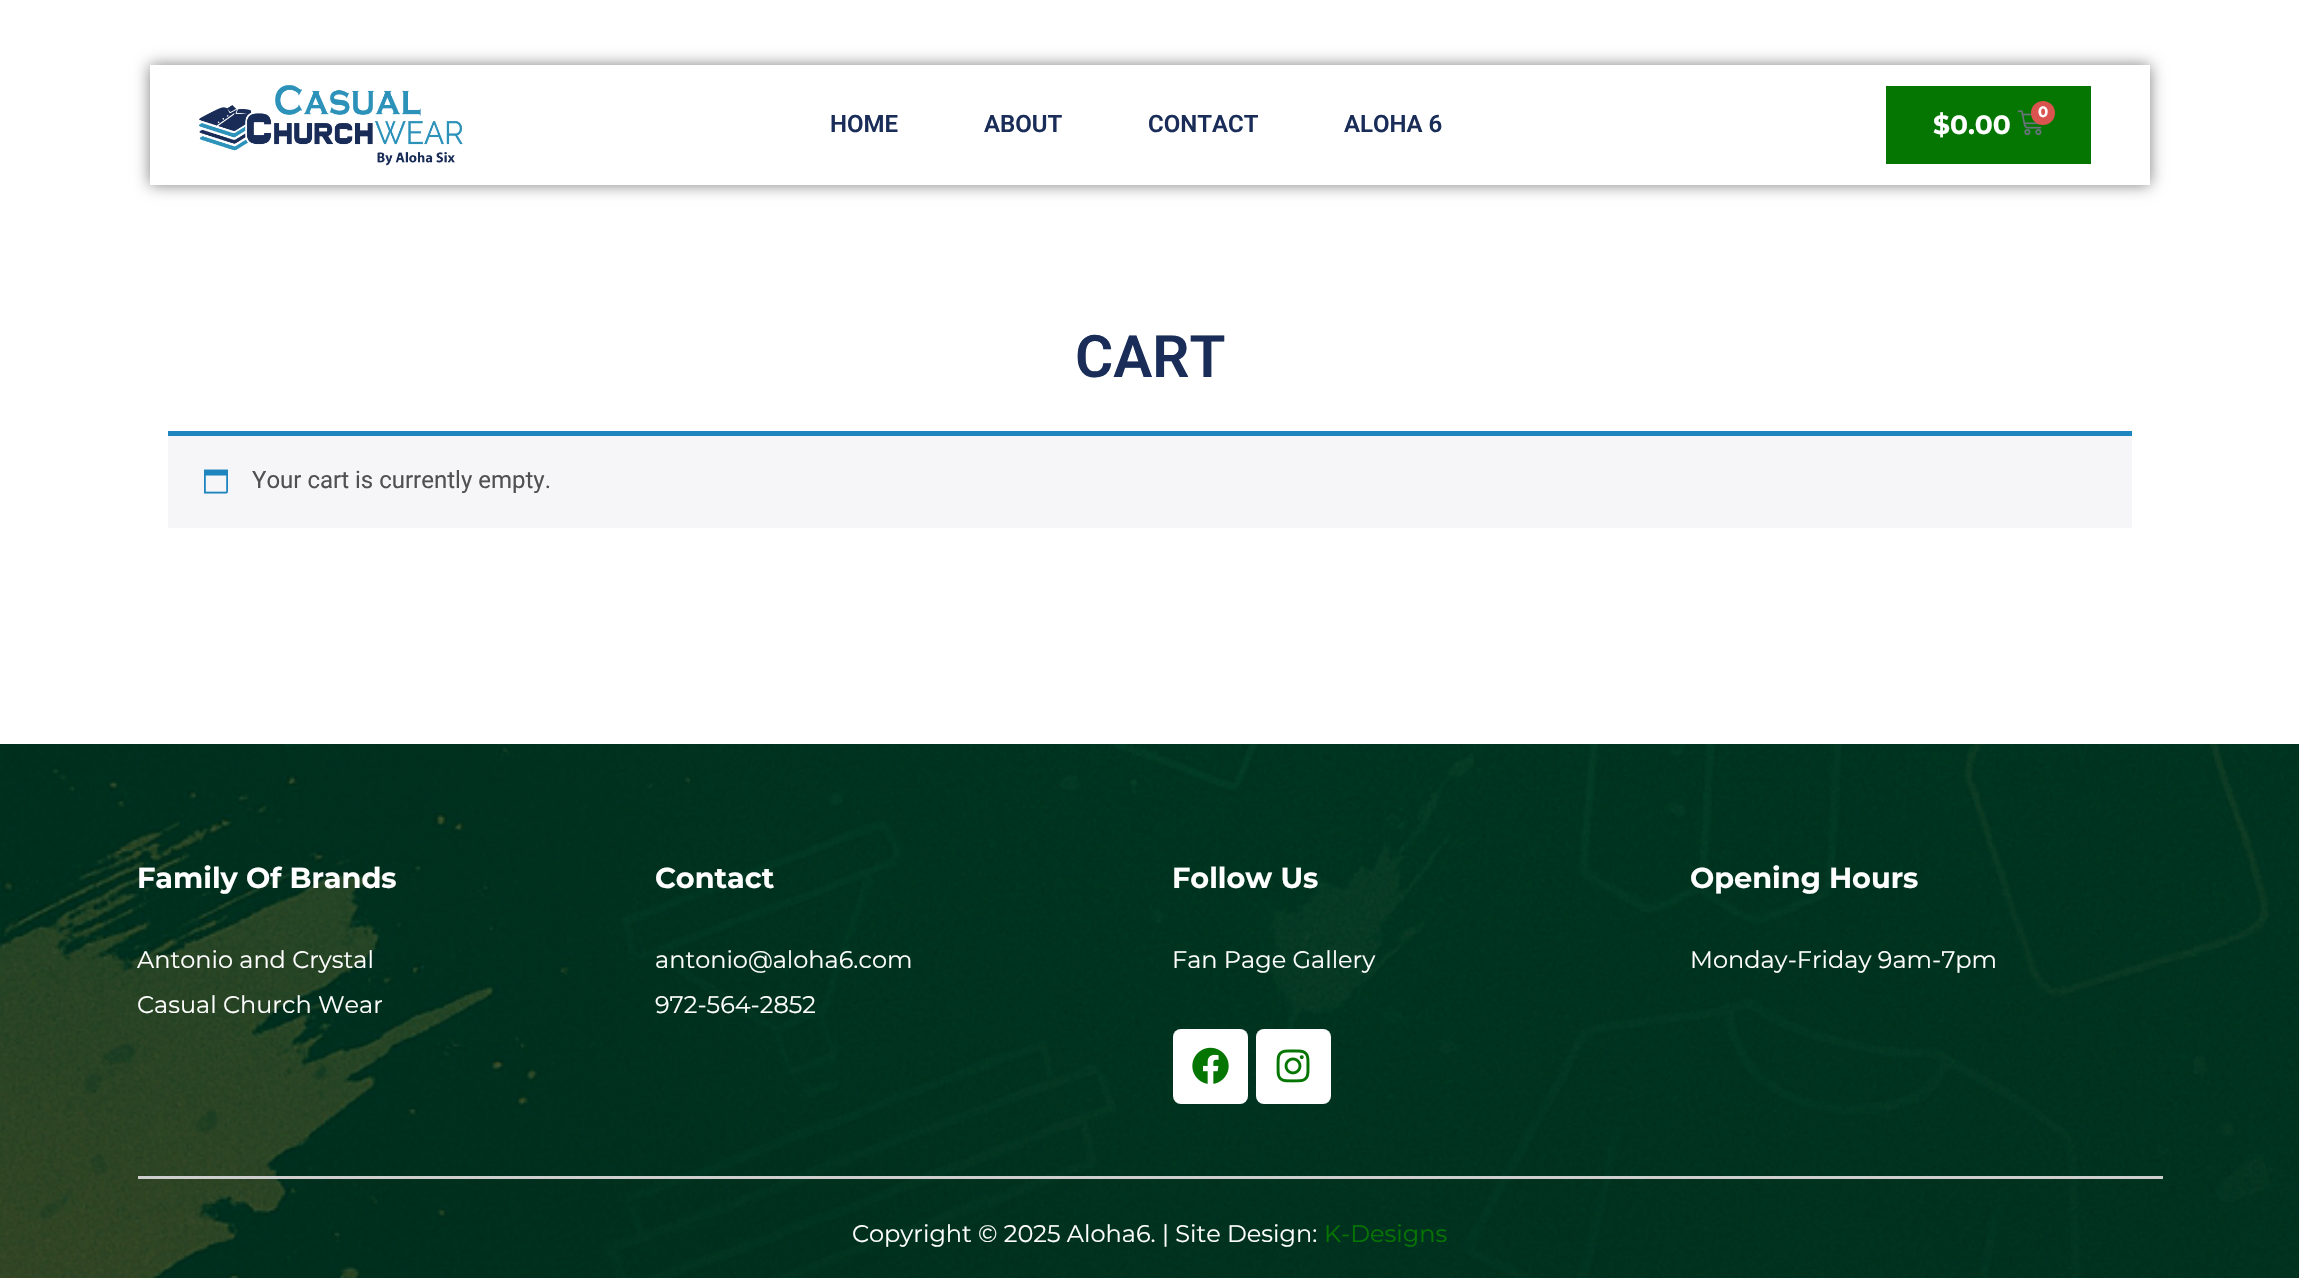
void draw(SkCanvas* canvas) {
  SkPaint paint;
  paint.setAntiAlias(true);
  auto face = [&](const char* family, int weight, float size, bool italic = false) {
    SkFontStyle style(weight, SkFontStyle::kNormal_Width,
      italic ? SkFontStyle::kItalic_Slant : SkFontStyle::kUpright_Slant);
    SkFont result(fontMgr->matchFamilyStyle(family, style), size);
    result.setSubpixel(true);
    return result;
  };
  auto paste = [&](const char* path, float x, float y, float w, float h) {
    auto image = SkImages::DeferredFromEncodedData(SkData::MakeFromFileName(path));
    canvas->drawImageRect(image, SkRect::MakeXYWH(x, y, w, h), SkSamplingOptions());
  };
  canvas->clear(0xffffffff);
  paint.setColor(0x80000000);
  paint.setMaskFilter(SkMaskFilter::MakeBlur(kNormal_SkBlurStyle, 7.5f));
  canvas->drawRect(SkRect::MakeXYWH(150, 65, 2000, 120), paint);
  paint.setMaskFilter(nullptr);
  paint.setColor(0xffffffff);
  canvas->drawRect(SkRect::MakeXYWH(150, 65, 2000, 120), paint);
  paste("img/1.png", 198, 85, 265, 81);
  paint.setColor(0xff067603);
  canvas->drawRect(SkRect::MakeXYWH(1886, 86, 205, 78), paint);
  paste("img/2.png", 2017, 110, 25, 26);
  paint.setColor(0xffd9534f);
  canvas->drawCircle(2043, 113, 12, paint);
  paint.setColor(0xfff6f5f8);
  canvas->drawRect(SkRect::MakeXYWH(168, 436, 1964, 92), paint);
  paint.setColor(0xff1e85be);
  canvas->drawRect(SkRect::MakeXYWH(168, 431, 1964, 5), paint);
  paste("img/3.png", 204, 469, 24, 25);
  paste("img/4.png", 0, 744, 2299, 534);
  paint.setColor(0xffcecece);
  canvas->drawRect(SkRect::MakeXYWH(138, 1176, 2025, 3), paint);
  paint.setColor(0xffffffff);
  canvas->drawRoundRect(SkRect::MakeXYWH(1173, 1029, 75, 75), 8, 8, paint);
  paste("img/5.png", 1192, 1047, 37, 37);
  canvas->drawRoundRect(SkRect::MakeXYWH(1256, 1029, 75, 75), 8, 8, paint);
  paste("img/6.png", 1276, 1049, 34, 34);
  auto f0 = face("Roboto", 600, 24);
  paint.setColor(0xff192d58);
  {
    const struct { const char* s; float x, y; } items[] = {
      {"HOME", 830, 132},
      {"ABOUT", 984, 132},
      {"CONTACT", 1148, 132},
      {"ALOHA 6", 1344, 132},
    };
    for (auto [s, x, y] : items) {
      canvas->drawString(s, x, y, f0, paint);
    }
  }
  auto f1 = face("Montserrat", 700, 26.5f);
  paint.setColor(0xffffffff);
  canvas->drawString("$0.00", 1933, 134, f1, paint);
  auto f2 = face("Montserrat", 700, 15);
  canvas->drawString("0", 2038, 117, f2, paint);
  auto f3 = face("Roboto", 600, 58.5f);
  paint.setColor(0xff192d58);
  canvas->drawString("CART", 1075, 377, f3, paint);
  auto f4 = face("Roboto", 400, 24);
  paint.setColor(0xff515151);
  canvas->drawString("Your cart is currently empty.", 252, 488, f4, paint);
  auto f5 = face("Montserrat", 700, 28.75f);
  paint.setColor(0xffffffff);
  canvas->drawString("Family Of Brands", 137, 888, f5, paint);
  auto f6 = face("Montserrat", 400, 24);
  canvas->drawString("Antonio and Crystal", 137, 968, f6, paint);
  canvas->drawString("Casual Church Wear", 137, 1013, f6, paint);
  canvas->drawString("Contact", 655, 888, f5, paint);
  canvas->drawString("antonio@aloha6.com", 655, 968, f6, paint);
  canvas->drawString("972-564-2852", 655, 1013, f6, paint);
  canvas->drawString("Follow Us", 1172, 888, f5, paint);
  canvas->drawString("Fan Page Gallery", 1172, 968, f6, paint);
  canvas->drawString("Opening Hours", 1690, 888, f5, paint);
  canvas->drawString("Monday-Friday 9am-7pm", 1690, 968, f6, paint);
  canvas->drawString("Copyright © 2025 Aloha6. | Site Design:", 852, 1242, f6, paint);
  paint.setColor(0xff067603);
  canvas->drawString("K-Designs", 1324, 1242, f6, paint);
}
